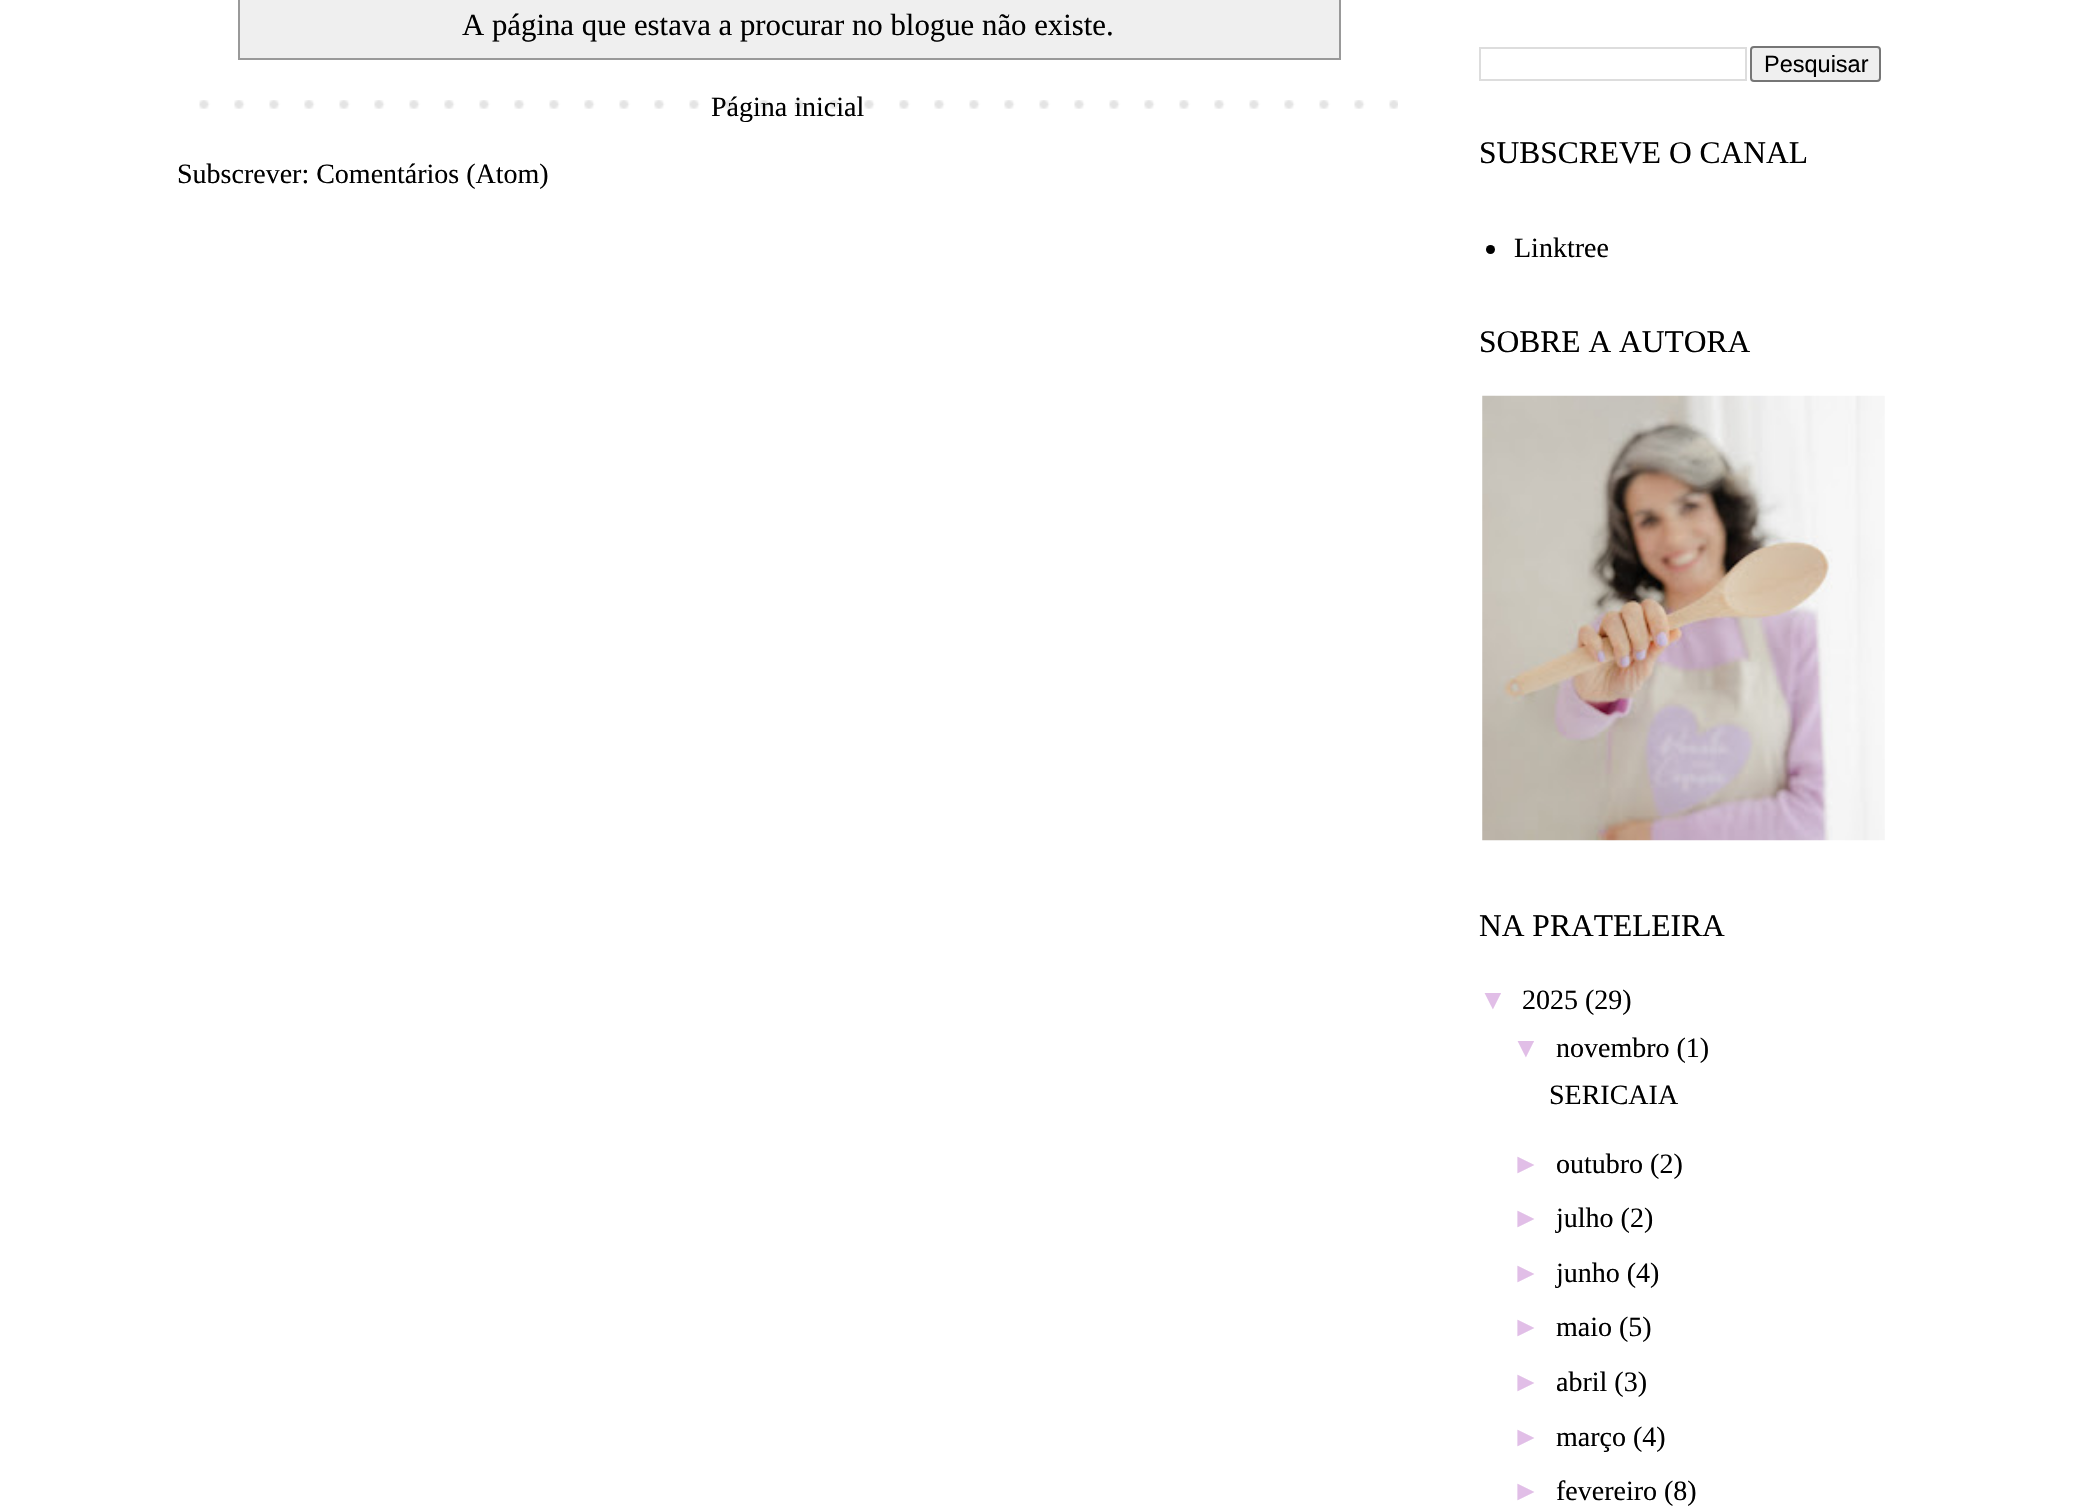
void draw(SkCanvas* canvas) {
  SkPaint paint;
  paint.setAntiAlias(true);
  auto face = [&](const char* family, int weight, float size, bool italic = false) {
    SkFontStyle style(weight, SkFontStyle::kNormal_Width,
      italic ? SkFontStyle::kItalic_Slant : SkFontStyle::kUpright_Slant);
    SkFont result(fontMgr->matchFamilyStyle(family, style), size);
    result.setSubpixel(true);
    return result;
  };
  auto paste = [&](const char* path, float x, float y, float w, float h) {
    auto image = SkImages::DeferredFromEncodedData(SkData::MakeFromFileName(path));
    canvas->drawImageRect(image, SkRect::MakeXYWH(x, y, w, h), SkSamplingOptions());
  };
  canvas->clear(0xffffffff);
  paint.setStroke(true);
  paint.setStrokeWidth(2);
  paint.setColor(0xff999999);
  canvas->drawRect(SkRect::MakeXYWH(239, -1, 1101, 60), paint);
  paint.setStroke(false);
  paint.setColor(0xffefefef);
  canvas->drawRect(SkRect::MakeXYWH(240, 0, 1099, 58), paint);
  paste("img/1.png", 199, 100, 1199, 9);
  paint.setStroke(true);
  paint.setColor(0xffdddddd);
  canvas->drawRect(SkRect::MakeXYWH(1480, 48, 266, 32), paint);
  paint.setStroke(false);
  paint.setColor(0xffefefef);
  canvas->drawRoundRect(SkRect::MakeXYWH(1751, 47, 129, 34), 3, 3, paint);
  paint.setStroke(true);
  paint.setColor(0xff767676);
  canvas->drawRoundRect(SkRect::MakeXYWH(1751, 47, 129, 34), 3, 3, paint);
  paint.setStroke(false);
  paint.setColor(0xff000000);
  canvas->drawCircle(1490.5f, 249.5f, 4.5f, paint);
  paste("img/2.png", 1482, 395, 403, 446);
  auto f0 = face("Liberation Serif", 400, 30.8f);
  canvas->drawString("A página que estava a procurar no blogue não existe.", 462, 35, f0, paint);
  auto f1 = face("Liberation Serif", 400, 28);
  canvas->drawString("Página inicial", 711, 116, f1, paint);
  canvas->drawString("Subscrever: Comentários (Atom)", 177, 183, f1, paint);
  auto f2 = face("Liberation Sans", 400, 23.5f);
  canvas->drawString("Pesquisar", 1764, 72, f2, paint);
  auto f3 = face("Liberation Serif", 400, 31.5f);
  canvas->drawString("SUBSCREVE O CANAL", 1479, 163, f3, paint);
  canvas->drawString("Linktree", 1514, 257, f1, paint);
  canvas->drawString("SOBRE A AUTORA", 1479, 352, f3, paint);
  canvas->drawString("NA PRATELEIRA", 1479, 936, f3, paint);
  auto f4 = face("Liberation Sans", 400, 28);
  paint.setColor(0xffe1bee7);
  canvas->drawString("▼", 1479, 1009, f4, paint);
  paint.setColor(0xff000000);
  canvas->drawString("2025 (29)", 1522, 1009, f1, paint);
  paint.setColor(0xffe1bee7);
  canvas->drawString("▼", 1512, 1057, f4, paint);
  paint.setColor(0xff000000);
  canvas->drawString("novembro (1)", 1556, 1057, f1, paint);
  canvas->drawString("SERICAIA", 1549, 1104, f1, paint);
  paint.setColor(0xffe1bee7);
  canvas->drawString("►", 1512, 1173, f4, paint);
  paint.setColor(0xff000000);
  canvas->drawString("outubro (2)", 1556, 1173, f1, paint);
  paint.setColor(0xffe1bee7);
  canvas->drawString("►", 1512, 1227, f4, paint);
  paint.setColor(0xff000000);
  canvas->drawString("julho (2)", 1556, 1227, f1, paint);
  paint.setColor(0xffe1bee7);
  canvas->drawString("►", 1512, 1282, f4, paint);
  paint.setColor(0xff000000);
  canvas->drawString("junho (4)", 1556, 1282, f1, paint);
  paint.setColor(0xffe1bee7);
  canvas->drawString("►", 1512, 1336, f4, paint);
  paint.setColor(0xff000000);
  canvas->drawString("maio (5)", 1556, 1336, f1, paint);
  paint.setColor(0xffe1bee7);
  canvas->drawString("►", 1512, 1391, f4, paint);
  paint.setColor(0xff000000);
  canvas->drawString("abril (3)", 1556, 1391, f1, paint);
  paint.setColor(0xffe1bee7);
  canvas->drawString("►", 1512, 1446, f4, paint);
  paint.setColor(0xff000000);
  canvas->drawString("março (4)", 1556, 1446, f1, paint);
  paint.setColor(0xffe1bee7);
  canvas->drawString("►", 1512, 1500, f4, paint);
  paint.setColor(0xff000000);
  canvas->drawString("fevereiro (8)", 1556, 1500, f1, paint);
}
